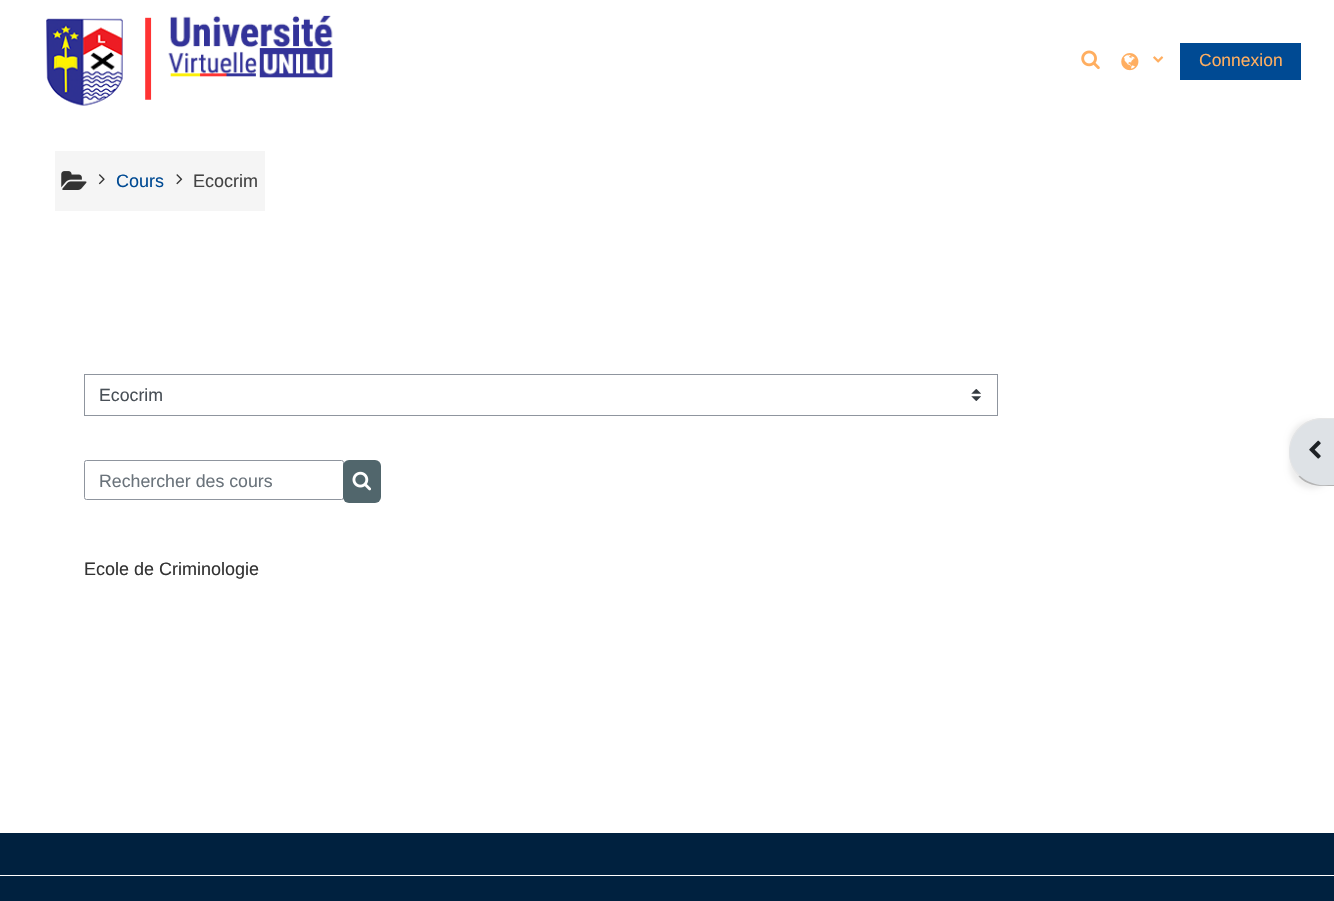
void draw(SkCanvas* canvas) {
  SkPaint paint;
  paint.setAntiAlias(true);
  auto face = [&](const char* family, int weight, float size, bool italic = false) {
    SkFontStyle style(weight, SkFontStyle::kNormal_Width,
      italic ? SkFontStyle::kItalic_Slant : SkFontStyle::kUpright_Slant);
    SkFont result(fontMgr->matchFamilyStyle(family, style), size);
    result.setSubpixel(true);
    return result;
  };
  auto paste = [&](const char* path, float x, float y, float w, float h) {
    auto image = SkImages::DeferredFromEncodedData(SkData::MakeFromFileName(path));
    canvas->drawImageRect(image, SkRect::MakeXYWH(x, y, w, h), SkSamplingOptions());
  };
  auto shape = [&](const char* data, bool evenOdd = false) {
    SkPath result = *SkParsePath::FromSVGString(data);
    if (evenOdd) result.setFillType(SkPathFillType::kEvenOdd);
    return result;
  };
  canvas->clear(0xffffffff);
  paste("img/1.png", 46, 15, 287, 91);
  paste("img/2.png", 1081, 50, 19, 20);
  paste("img/3.png", 1121, 53, 18, 18);
  paste("img/4.png", 1153, 56, 11, 7);
  paint.setColor(0xff004a93);
  canvas->drawRect(SkRect::MakeXYWH(1180, 43, 121, 37), paint);
  paint.setColor(0xfff5f5f5);
  canvas->drawRect(SkRect::MakeXYWH(55, 151, 210, 60), paint);
  paste("img/5.png", 61, 171, 26, 19);
  paste("img/6.png", 98, 174, 7, 11);
  paste("img/7.png", 176, 174, 7, 11);
  paste("img/8.png", 971, 389, 10, 12);
  paint.setStroke(true);
  paint.setStrokeWidth(1);
  paint.setColor(0xff8f959e);
  canvas->drawRect(SkRect::MakeXYWH(84.5f, 374.5f, 913, 41), paint);
  canvas->drawRoundRect(SkRect::MakeXYWH(84.5f, 460.5f, 259, 39), 2, 2, paint);
  paint.setStroke(false);
  paint.setColor(0xff51666c);
  canvas->drawRoundRect(SkRect::MakeXYWH(343, 460, 38, 43), 6, 6, paint);
  paste("img/9.png", 352, 471, 19, 20);
  paint.setColor(0x12000000);
  paint.setMaskFilter(SkMaskFilter::MakeBlur(kNormal_SkBlurStyle, 2.5f));
  canvas->drawRoundRect(SkRect::MakeXYWH(1289, 420, 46, 69), 34, 34, paint);
  paint.setMaskFilter(nullptr);
  paint.setColor(0xffdee2e6);
  canvas->drawPath(shape("M1323 418H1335V486H1323C1304 486 1289 471 1289 452C1289 433 1304 418 1323 418Z"), paint);
  paint.setColor(0xffe6e6e6);
  canvas->drawPath(shape("M1323 418C1313 418 1304.5 422 1299 427.5L1299.5 428.5C1309.5 418.5 1320.5 419 1333.5 419L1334.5 418Z"), paint);
  paint.setColor(0xffb3b3b3);
  canvas->drawPath(shape("M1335 486C1320.5 486 1309.5 487.5 1298.5 476.5L1299.5 475.5C1305 480.5 1312.5 484 1320 485C1324.5 485.5 1329 485 1334 485Z"), paint);
  paint.setColor(0xffe6e6e6);
  canvas->drawPath(shape("M1299 428C1287 440 1285 463 1299 476L1300 475C1286 463 1287 441 1300 428Z"), paint);
  paste("img/10.png", 1309, 440, 12, 19);
  paint.setColor(0xff00213f);
  canvas->drawRect(SkRect::MakeXYWH(0, 833, 1334, 68), paint);
  paint.setColor(0xffffffff);
  canvas->drawRect(SkRect::MakeXYWH(0, 875, 1334, 1), paint);
  auto f0 = face("Liberation Sans", 400, 17.5f);
  paint.setColor(0xffffae60);
  canvas->drawString("Connexion", 1199, 66, f0, paint);
  auto f1 = face("Liberation Sans", 400, 18);
  paint.setColor(0xff004a93);
  canvas->drawString("Cours", 116, 187, f1, paint);
  paint.setColor(0xff444444);
  canvas->drawString("Ecocrim", 193, 187, f1, paint);
  auto f2 = face("Liberation Sans", 400, 17.75f);
  paint.setColor(0xff495057);
  canvas->drawString("Ecocrim", 99, 401, f2, paint);
  paint.setColor(0xff6a737b);
  canvas->drawString("Rechercher des cours", 99, 487, f2, paint);
  paint.setColor(0xff333333);
  canvas->drawString("Ecole de Criminologie", 84, 575, f1, paint);
}
